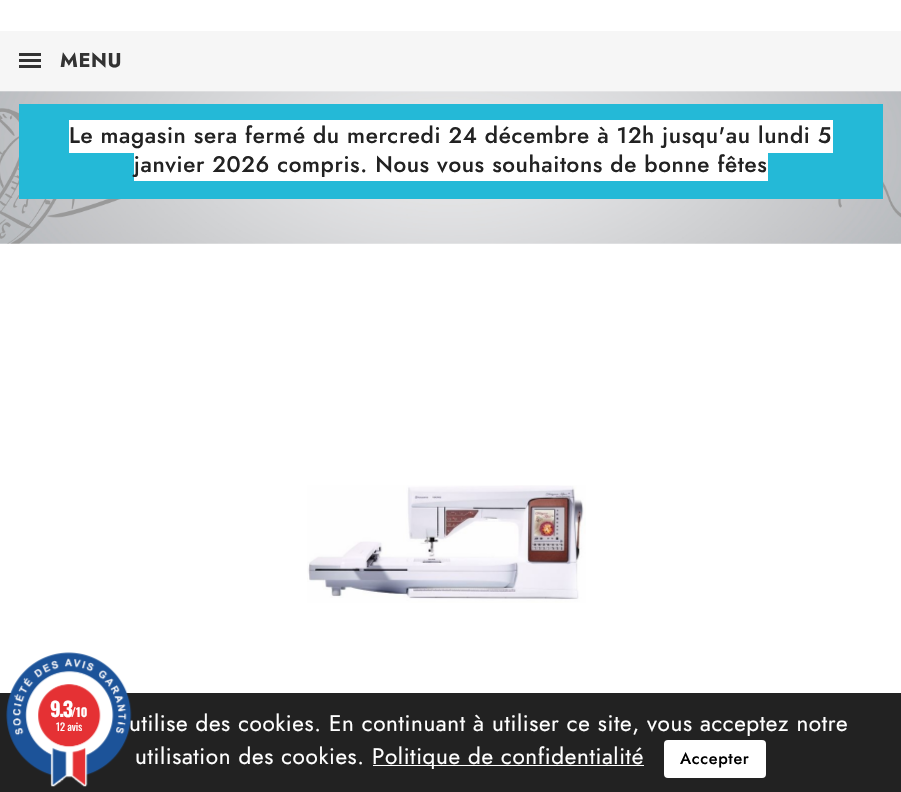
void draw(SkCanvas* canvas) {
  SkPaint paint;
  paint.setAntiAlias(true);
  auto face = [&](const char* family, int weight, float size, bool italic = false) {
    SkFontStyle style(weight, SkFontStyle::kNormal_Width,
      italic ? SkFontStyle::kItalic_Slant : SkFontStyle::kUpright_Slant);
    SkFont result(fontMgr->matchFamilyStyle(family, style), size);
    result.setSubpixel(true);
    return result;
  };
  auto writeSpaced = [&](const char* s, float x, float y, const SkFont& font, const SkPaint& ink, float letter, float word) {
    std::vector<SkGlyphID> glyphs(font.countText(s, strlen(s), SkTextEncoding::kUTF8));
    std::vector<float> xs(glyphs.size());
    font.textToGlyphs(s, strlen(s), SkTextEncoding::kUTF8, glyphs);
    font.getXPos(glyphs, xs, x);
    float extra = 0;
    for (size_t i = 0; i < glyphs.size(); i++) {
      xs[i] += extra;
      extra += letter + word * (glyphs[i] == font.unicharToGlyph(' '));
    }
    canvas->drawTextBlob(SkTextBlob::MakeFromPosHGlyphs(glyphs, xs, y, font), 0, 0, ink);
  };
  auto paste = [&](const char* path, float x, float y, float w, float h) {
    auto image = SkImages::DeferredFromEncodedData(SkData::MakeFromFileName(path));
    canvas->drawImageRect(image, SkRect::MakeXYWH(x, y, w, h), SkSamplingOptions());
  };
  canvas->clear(0xffffffff);
  {
    const struct { float x, y, w, h; SkColor color; } items[] = {
      {0, 31, 901, 60, 0xfff6f6f6},
      {19, 53, 22, 3, 0xff333333},
      {19, 59, 22, 3, 0xff333333},
      {19, 65, 22, 3, 0xff333333},
    };
    for (auto [x, y, w, h, color] : items) {
      paint.setColor(color);
      canvas->drawRect(SkRect::MakeXYWH(x, y, w, h), paint);
    }
  }
  paste("img/1.png", 0, 91, 901, 153);
  {
    const struct { float x, y, w, h; SkColor color; } items[] = {
      {19, 104, 864, 95, 0xff24b9d7},
      {69, 120, 764, 33, 0xffffffff},
      {134, 153, 634, 28, 0xffffffff},
    };
    for (auto [x, y, w, h, color] : items) {
      paint.setColor(color);
      canvas->drawRect(SkRect::MakeXYWH(x, y, w, h), paint);
    }
  }
  paste("img/2.png", 307, 485, 279, 118);
  paint.setColor(0xff222222);
  canvas->drawRect(SkRect::MakeXYWH(0, 693, 901, 99), paint);
  paint.setColor(0xffffffff);
  canvas->drawRect(SkRect::MakeXYWH(373, 765, 271, 1), paint);
  canvas->drawRoundRect(SkRect::MakeXYWH(664, 740, 102, 38), 4, 4, paint);
  auto f0 = face("Jost", 700, 20);
  paint.setColor(0xff333333);
  writeSpaced("MENU", 60, 67, f0, paint, 0.62f, 0);
  auto f1 = face("Jost", 500, 22.5f);
  paint.setColor(0xff222222);
  writeSpaced("Le magasin sera fermé du mercredi 24 décembre à 12h jusqu'au lundi 5", 69, 143, f1, paint, 0.62f, 0);
  writeSpaced("janvier 2026 compris. Nous vous souhaitons de bonne fêtes", 134, 172, f1, paint, 0.62f, 0);
  auto f2 = face("Jost", 400, 22.5f);
  paint.setColor(0xffffffff);
  {
    const struct { const char* s; float x, y; } items[] = {
      {"utilise des cookies. En continuant à utiliser ce site, vous acceptez notre", 129, 731},
      {"utilisation des cookies.", 135, 764},
      {"Politique de confidentialité", 372, 764},
    };
    for (auto [s, x, y] : items) {
      writeSpaced(s, x, y, f2, paint, 0.62f, 0);
    }
  }
  auto f3 = face("Jost", 500, 16.25f);
  paint.setColor(0xff000000);
  writeSpaced("Accepter", 680, 764, f3, paint, 0.62f, 0);
  paste("img/3.png", 6, 652, 126, 135);
  auto f4 = face("Oswald", 700, 20);
  paint.setColor(0xffffffff);
  writeSpaced("9.3", 50, 717, f4, paint, -1.5f, 0);
  auto f5 = face("Oswald", 700, 12);
  canvas->drawString("/10", 71, 717, f5, paint);
  auto f6 = face("Oswald", 400, 10.5f);
  canvas->drawString("12 avis", 56, 731, f6, paint);
}
